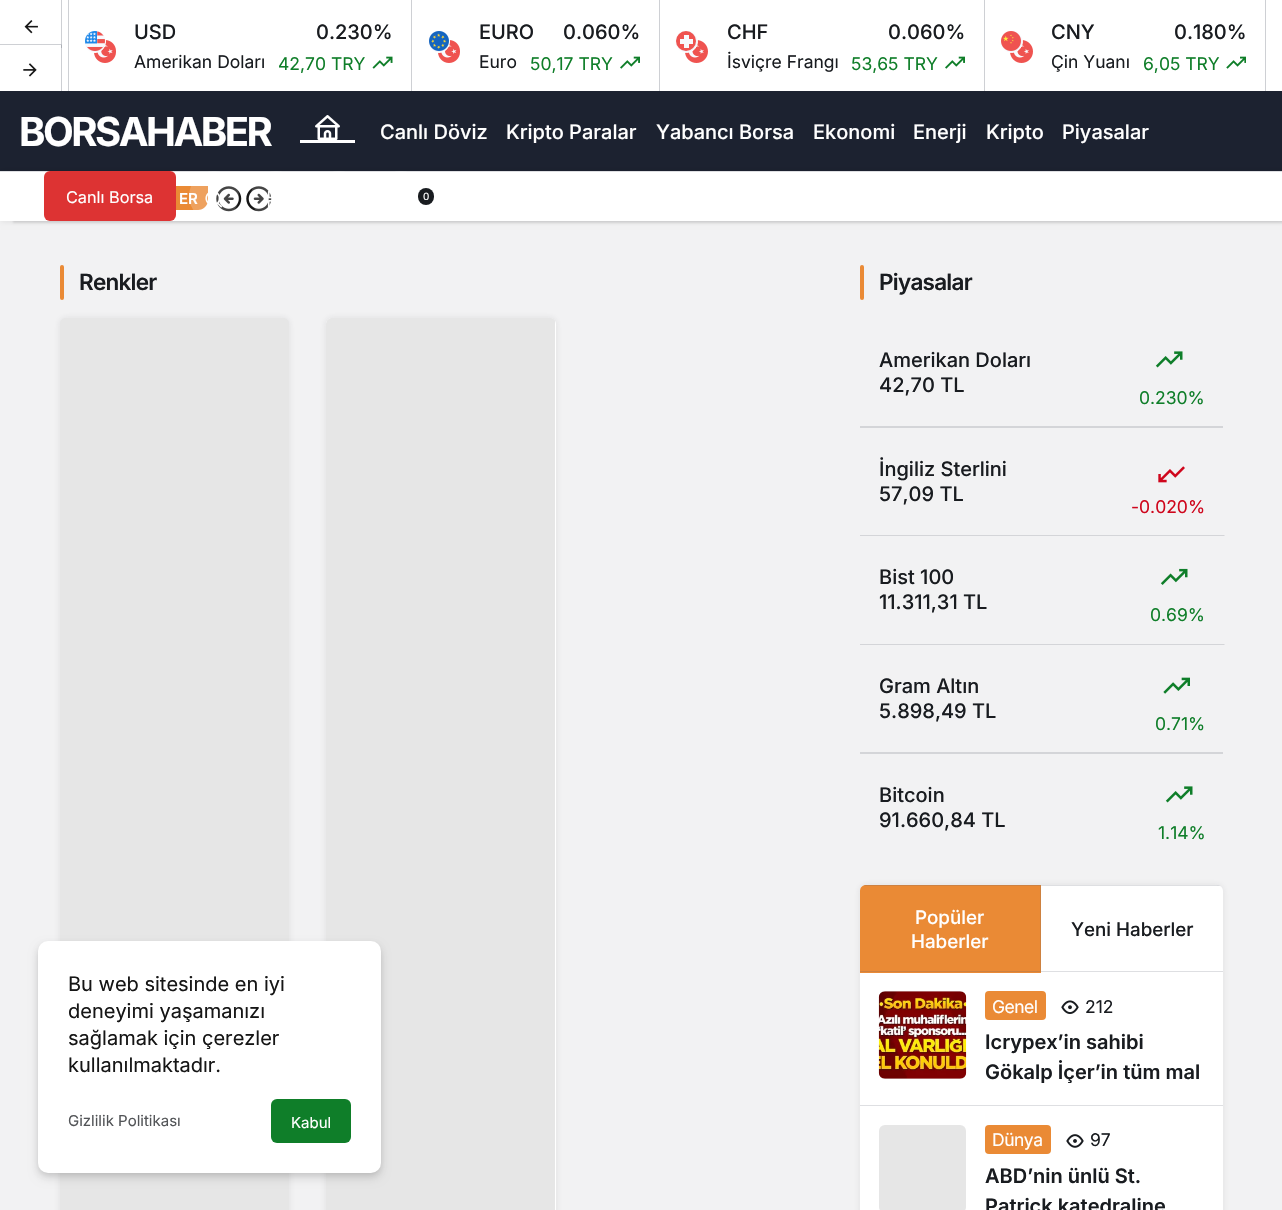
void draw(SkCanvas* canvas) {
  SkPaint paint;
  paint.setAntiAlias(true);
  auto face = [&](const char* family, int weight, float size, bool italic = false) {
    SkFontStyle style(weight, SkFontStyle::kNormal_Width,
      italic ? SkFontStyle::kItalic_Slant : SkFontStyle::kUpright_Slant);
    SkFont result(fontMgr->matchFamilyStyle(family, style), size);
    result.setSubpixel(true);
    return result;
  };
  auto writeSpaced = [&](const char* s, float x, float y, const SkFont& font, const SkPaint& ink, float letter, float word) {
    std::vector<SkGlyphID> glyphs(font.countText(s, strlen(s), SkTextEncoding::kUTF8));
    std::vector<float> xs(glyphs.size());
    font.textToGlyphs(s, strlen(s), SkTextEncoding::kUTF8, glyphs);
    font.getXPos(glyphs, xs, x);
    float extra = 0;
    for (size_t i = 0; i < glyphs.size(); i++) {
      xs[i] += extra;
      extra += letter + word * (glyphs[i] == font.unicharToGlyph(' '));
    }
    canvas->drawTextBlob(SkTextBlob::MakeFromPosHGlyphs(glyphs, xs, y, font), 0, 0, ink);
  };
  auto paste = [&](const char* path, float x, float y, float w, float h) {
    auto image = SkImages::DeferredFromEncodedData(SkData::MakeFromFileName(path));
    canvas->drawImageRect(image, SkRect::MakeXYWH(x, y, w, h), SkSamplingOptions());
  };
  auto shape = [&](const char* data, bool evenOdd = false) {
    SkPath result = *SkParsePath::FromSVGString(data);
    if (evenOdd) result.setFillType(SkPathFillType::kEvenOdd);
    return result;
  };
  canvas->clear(0xfff2f2f3);
  paint.setColor(0x1a000000);
  paint.setMaskFilter(SkMaskFilter::MakeBlur(kNormal_SkBlurStyle, 1));
  canvas->drawRect(SkRect::MakeXYWH(13, 93, 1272, 130), paint);
  paint.setMaskFilter(nullptr);
  paint.setColor(0xffffffff);
  canvas->drawRect(SkRect::MakeXYWH(0, 0, 1282, 91), paint);
  paint.setColor(0xffced0d4);
  canvas->drawRect(SkRect::MakeXYWH(61, 0, 1, 48), paint);
  paste("img/1.png", 24, 20, 14, 14);
  canvas->drawRect(SkRect::MakeXYWH(68, 0, 1, 91), paint);
  canvas->drawRect(SkRect::MakeXYWH(411, 0, 1, 91), paint);
  paste("img/3.png", 94, 40, 22, 23);
  paint.setColor(0xfff0f3fa);
  canvas->drawRoundRect(SkRect::MakeXYWH(84.5f, 30.5f, 21, 22), 10.5f, 10.5f, paint);
  paint.setStroke(true);
  paint.setStrokeWidth(1);
  paint.setColor(0xffffffff);
  canvas->drawRoundRect(SkRect::MakeXYWH(84.5f, 30.5f, 21, 22), 10.5f, 10.5f, paint);
  paste("img/2.png", 85, 31, 20, 20);
  paste("img/4.png", 372, 56, 21, 13);
  paint.setStroke(false);
  paint.setColor(0xffced0d4);
  canvas->drawRect(SkRect::MakeXYWH(659, 0, 1, 91), paint);
  paste("img/6.png", 438, 40, 22, 23);
  paint.setColor(0xfff0f3fa);
  canvas->drawRoundRect(SkRect::MakeXYWH(428.5f, 30.5f, 21, 22), 10.5f, 10.5f, paint);
  paint.setStroke(true);
  paint.setColor(0xffffffff);
  canvas->drawRoundRect(SkRect::MakeXYWH(428.5f, 30.5f, 21, 22), 10.5f, 10.5f, paint);
  paste("img/5.png", 429, 31, 20, 20);
  paste("img/7.png", 620, 56, 20, 13);
  paint.setStroke(false);
  paint.setColor(0xffced0d4);
  canvas->drawRect(SkRect::MakeXYWH(984, 0, 1, 91), paint);
  paste("img/8.png", 685, 40, 23, 23);
  paint.setColor(0xfff0f3fa);
  canvas->drawCircle(686.5f, 41.5f, 11, paint);
  paint.setStroke(true);
  paint.setColor(0xffffffff);
  canvas->drawCircle(686.5f, 41.5f, 11, paint);
  paint.setStroke(false);
  paint.setColor(0xffef5350);
  canvas->drawCircle(686, 41, 10, paint);
  paint.setColor(0xfff8f9fd);
  canvas->drawRect(SkRect::MakeXYWH(680, 39, 13, 5), paint);
  canvas->drawRect(SkRect::MakeXYWH(684, 35, 5, 13), paint);
  paste("img/7.png", 945, 56, 20, 13);
  paint.setColor(0xffced0d4);
  canvas->drawRect(SkRect::MakeXYWH(1265, 0, 1, 91), paint);
  paste("img/8.png", 1010, 40, 23, 23);
  paint.setColor(0xfff0f3fa);
  canvas->drawCircle(1011.5f, 41.5f, 11, paint);
  paint.setStroke(true);
  paint.setColor(0xffffffff);
  canvas->drawCircle(1011.5f, 41.5f, 11, paint);
  paste("img/9.png", 1001, 31, 20, 20);
  paste("img/10.png", 1226, 56, 20, 13);
  paint.setStroke(false);
  paint.setColor(0xffced0d4);
  canvas->drawPath(shape("M0 44H62L61 45H0Z"), paint);
  paint.setColor(0x4d5b616e);
  canvas->drawPath(shape("M62 44V91H61V45Z"), paint);
  paste("img/11.png", 23, 63, 14, 14);
  paint.setColor(0xff1c2230);
  canvas->drawRect(SkRect::MakeXYWH(0, 91, 1282, 80), paint);
  paste("img/12.png", 315, 115, 25, 25);
  paint.setColor(0xffffffff);
  canvas->drawRect(SkRect::MakeXYWH(300, 140, 55, 3), paint);
  paint.setColor(0x1a000000);
  paint.setMaskFilter(SkMaskFilter::MakeBlur(kNormal_SkBlurStyle, 3));
  canvas->drawRect(SkRect::MakeXYWH(1, 171, 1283, 50), paint);
  paint.setMaskFilter(nullptr);
  paint.setColor(0xffffffff);
  canvas->drawRect(SkRect::MakeXYWH(0, 172, 1282, 49), paint);
  paint.setColor(0xffdedfe2);
  canvas->drawRect(SkRect::MakeXYWH(0, 171, 1282, 1), paint);
  paint.setColor(0xffea8a35);
  canvas->drawPath(shape("M70 186H208V200C208 205.5 203.5 210 198 210H60V196C60 190.5 64.5 186 70 186Z"), paint);
  paint.setColor(0xffdd3333);
  canvas->drawRoundRect(SkRect::MakeXYWH(44, 171, 132, 50), 6, 6, paint);
  paste("img/16.png", 246, 186, 26, 26);
  paint.setColor(0x33ffffff);
  canvas->drawCircle(276, 196, 25, paint);
  paste("img/14.png", 267, 191, 5, 16);
  canvas->drawCircle(339, 196, 25, paint);
  canvas->drawCircle(401, 196, 25, paint);
  paint.setColor(0xff191c20);
  canvas->drawRoundRect(SkRect::MakeXYWH(418, 188, 16, 17), 8, 8, paint);
  paste("img/15.png", 216, 186, 26, 26);
  paint.setColor(0xffea8a35);
  canvas->drawRoundRect(SkRect::MakeXYWH(60, 265, 4, 35), 2, 2, paint);
  paint.setColor(0x1a32353d);
  paint.setMaskFilter(SkMaskFilter::MakeBlur(kNormal_SkBlurStyle, 3));
  canvas->drawRoundRect(SkRect::MakeXYWH(60, 318, 229, 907), 6, 6, paint);
  paint.setMaskFilter(nullptr);
  paint.setColor(0xffe6e6e6);
  canvas->drawPath(shape("M66 318H283C286.5 318 289 320.5 289 324V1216H60V324C60 320.5 62.5 318 66 318Z"), paint);
  paint.setColor(0x1a32353d);
  paint.setMaskFilter(SkMaskFilter::MakeBlur(kNormal_SkBlurStyle, 3));
  canvas->drawRoundRect(SkRect::MakeXYWH(326, 318, 230, 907), 6, 6, paint);
  paint.setMaskFilter(nullptr);
  paint.setColor(0xffffffff);
  canvas->drawRoundRect(SkRect::MakeXYWH(326, 318, 230, 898), 6, 6, paint);
  canvas->save();
  canvas->clipPath(shape("M332 318H550C553.5 318 556 320.5 556 324V2312C556 2315.5 553.5 2318 550 2318H332C328.5 2318 326 2315.5 326 2312V324C326 320.5 328.5 318 332 318Z"), true);
  paint.setColor(0xffe6e6e6);
  canvas->drawPath(shape("M332 318H555V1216H326V324C326 320.5 328.5 318 332 318Z"), paint);
  canvas->restore();
  paint.setColor(0xffea8a35);
  canvas->drawRoundRect(SkRect::MakeXYWH(860, 265, 4, 35), 2, 2, paint);
  canvas->save();
  canvas->clipRect(SkRect::MakeXYWH(860, 318, 363, 542));
  paint.setColor(0xffd4d5d8);
  canvas->drawPath(shape("M1225 428H860V426H1224Z"), paint);
  canvas->restore();
  paste("img/17.png", 1155, 351, 28, 17);
  canvas->drawPath(shape("M1225 536H860V535H1224Z"), paint);
  paste("img/18.png", 1158, 466, 27, 17);
  canvas->drawPath(shape("M1225 645H860V644H1224Z"), paint);
  paste("img/19.png", 1160, 568, 28, 17);
  canvas->save();
  canvas->clipRect(SkRect::MakeXYWH(860, 318, 363, 542));
  canvas->drawPath(shape("M1225 754H860V752H1224Z"), paint);
  canvas->restore();
  paste("img/20.png", 1163, 677, 27, 17);
  paste("img/17.png", 1165, 786, 28, 17);
  paint.setColor(0x1a32353d);
  paint.setMaskFilter(SkMaskFilter::MakeBlur(kNormal_SkBlurStyle, 3));
  canvas->drawRoundRect(SkRect::MakeXYWH(860, 885, 363, 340), 6, 6, paint);
  paint.setMaskFilter(nullptr);
  paint.setColor(0xffffffff);
  canvas->drawRoundRect(SkRect::MakeXYWH(860, 885, 363, 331), 6, 6, paint);
  paint.setColor(0xffea8a35);
  canvas->drawPath(shape("M866 885H1041V973H860V891C860 887.5 862.5 885 866 885Z"), paint);
  paint.setColor(0x335b616e);
  canvas->drawPath(shape("M866 885L863 886H1040L1041 885Z"), paint);
  canvas->drawPath(shape("M1041 885V972L1040 971V886Z"), paint);
  canvas->drawPath(shape("M1041 972H860V971H1040Z"), paint);
  canvas->save();
  canvas->clipPath(shape("M866 885H1217C1220.5 885 1223 887.5 1223 891V1634C1223 1637.5 1220.5 1640 1217 1640H866C862.5 1640 860 1637.5 860 1634V891C860 887.5 862.5 885 866 885Z"), true);
  canvas->drawRect(SkRect::MakeXYWH(1041, 885, 182, 1), paint);
  canvas->restore();
  paint.setColor(0xffdedfe2);
  canvas->drawRect(SkRect::MakeXYWH(1041, 971, 182, 1), paint);
  canvas->drawRect(SkRect::MakeXYWH(860, 1105, 363, 1), paint);
  paint.setColor(0xffe6e6e6);
  canvas->drawRoundRect(SkRect::MakeXYWH(879, 991, 87, 88), 6, 6, paint);
  paste("img/21.png", 878, 991, 89, 88);
  paint.setColor(0xffea8a35);
  canvas->drawRoundRect(SkRect::MakeXYWH(985, 991, 61, 29), 4, 4, paint);
  paste("img/22.png", 1061, 1000, 18, 14);
  paint.setColor(0xffe6e6e6);
  canvas->drawRoundRect(SkRect::MakeXYWH(879, 1125, 87, 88), 6, 6, paint);
  paint.setColor(0xffea8a35);
  canvas->drawRoundRect(SkRect::MakeXYWH(985, 1125, 66, 29), 4, 4, paint);
  paste("img/23.png", 1066, 1134, 18, 14);
  paint.setColor(0x14000000);
  paint.setMaskFilter(SkMaskFilter::MakeBlur(kNormal_SkBlurStyle, 2.5f));
  canvas->drawRoundRect(SkRect::MakeXYWH(38, 944, 343, 231), 10, 10, paint);
  paint.setMaskFilter(nullptr);
  paint.setColor(0x1f000000);
  paint.setMaskFilter(SkMaskFilter::MakeBlur(kNormal_SkBlurStyle, 5));
  canvas->drawRoundRect(SkRect::MakeXYWH(38, 946, 343, 232), 10, 10, paint);
  paint.setMaskFilter(nullptr);
  paint.setColor(0xffffffff);
  canvas->drawRoundRect(SkRect::MakeXYWH(38, 941, 343, 232), 10, 10, paint);
  paint.setColor(0xff0f7e29);
  canvas->drawRoundRect(SkRect::MakeXYWH(271, 1099, 80, 44), 6, 6, paint);
  auto f0 = face("Inter", 500, 20);
  paint.setColor(0xff191c20);
  canvas->drawString("USD", 134, 39, f0, paint);
  canvas->drawString("0.230%", 316, 39, f0, paint);
  auto f1 = face("Inter", 400, 17.5f);
  canvas->drawString("Amerikan Doları", 134, 68, f1, paint);
  paint.setColor(0xff0f7e29);
  canvas->drawString("42,70 TRY", 278, 70, f1, paint);
  paint.setColor(0xff191c20);
  canvas->drawString("EURO", 479, 39, f0, paint);
  canvas->drawString("0.060%", 563, 39, f0, paint);
  canvas->drawString("Euro", 479, 68, f1, paint);
  paint.setColor(0xff0f7e29);
  canvas->drawString("50,17 TRY", 530, 70, f1, paint);
  paint.setColor(0xff191c20);
  canvas->drawString("CHF", 727, 39, f0, paint);
  canvas->drawString("0.060%", 888, 39, f0, paint);
  canvas->drawString("İsviçre Frangı", 727, 68, f1, paint);
  paint.setColor(0xff0f7e29);
  canvas->drawString("53,65 TRY", 851, 70, f1, paint);
  paint.setColor(0xff191c20);
  canvas->drawString("CNY", 1051, 39, f0, paint);
  canvas->drawString("0.180%", 1174, 39, f0, paint);
  canvas->drawString("Çin Yuanı", 1051, 68, f1, paint);
  paint.setColor(0xff0f7e29);
  canvas->drawString("6,05 TRY", 1143, 70, f1, paint);
  auto f2 = face("Inter", 700, 40);
  paint.setColor(0xffffffff);
  writeSpaced("BORSAHABER", 19, 146, f2, paint, -2.5f, 0);
  {
    const struct { const char* s; float x, y; } items[] = {
      {"Canlı Döviz", 380, 139},
      {"Kripto Paralar", 506, 139},
      {"Yabancı Borsa", 656, 139},
      {"Ekonomi", 813, 139},
      {"Enerji", 913, 139},
      {"Kripto", 986, 139},
      {"Piyasalar", 1062, 139},
    };
    for (auto [s, x, y] : items) {
      canvas->drawString(s, x, y, f0, paint);
    }
  }
  auto f3 = face("Inter", 400, 16.25f);
  canvas->drawString("Canlı Borsa", 66, 203, f3, paint);
  auto f4 = face("Inter", 400, 10);
  canvas->drawString("0", 423, 200, f4, paint);
  auto f5 = face("Inter", 600, 15);
  canvas->drawString("ER", 179, 204, f5, paint);
  paint.setColor(0x33ffffff);
  canvas->drawCircle(214, 196, 25, paint);
  paste("img/13.png", 205, 192, 17, 16);
  auto f6 = face("Inter", 600, 22.5f);
  paint.setColor(0xff191c20);
  writeSpaced("Renkler", 79, 290, f6, paint, -0.75f, 0);
  writeSpaced("Piyasalar", 879, 290, f6, paint, -0.75f, 0);
  canvas->drawString("Amerikan Doları", 879, 367, f0, paint);
  canvas->drawString("42,70 TL", 879, 392, f0, paint);
  paint.setColor(0xff0f7e29);
  canvas->drawString("0.230%", 1139, 404, f1, paint);
  paint.setColor(0xff191c20);
  canvas->drawString("İngiliz Sterlini", 879, 476, f0, paint);
  canvas->drawString("57,09 TL", 879, 501, f0, paint);
  paint.setColor(0xffcf061c);
  canvas->drawString("-0.020%", 1131, 513, f1, paint);
  paint.setColor(0xff191c20);
  canvas->drawString("Bist 100", 879, 584, f0, paint);
  canvas->drawString("11.311,31 TL", 879, 609, f0, paint);
  paint.setColor(0xff0f7e29);
  canvas->drawString("0.69%", 1150, 621, f1, paint);
  paint.setColor(0xff191c20);
  canvas->drawString("Gram Altın", 879, 693, f0, paint);
  canvas->drawString("5.898,49 TL", 879, 718, f0, paint);
  paint.setColor(0xff0f7e29);
  canvas->drawString("0.71%", 1155, 730, f1, paint);
  paint.setColor(0xff191c20);
  canvas->drawString("Bitcoin", 879, 802, f0, paint);
  canvas->drawString("91.660,84 TL", 879, 827, f0, paint);
  paint.setColor(0xff0f7e29);
  canvas->drawString("1.14%", 1158, 839, f1, paint);
  auto f7 = face("Inter", 500, 18.75f);
  paint.setColor(0xffffffff);
  canvas->drawString("Popüler", 915, 924, f7, paint);
  canvas->drawString("Haberler", 911, 948, f7, paint);
  paint.setColor(0xff191c20);
  canvas->drawString("Yeni Haberler", 1071, 936, f7, paint);
  paint.setColor(0xffffffff);
  writeSpaced("Genel", 992, 1013, f1, paint, -0.5f, 0);
  paint.setColor(0xff191c20);
  canvas->drawString("212", 1085, 1013, f1, paint);
  auto f8 = face("Inter", 600, 20);
  canvas->drawString("Icrypex’in sahibi", 985, 1049, f8, paint);
  canvas->drawString("Gökalp İçer’in tüm mal", 985, 1079, f8, paint);
  paint.setColor(0xffffffff);
  writeSpaced("Dünya", 992, 1146, f1, paint, -0.5f, 0);
  paint.setColor(0xff191c20);
  canvas->drawString("97", 1090, 1146, f1, paint);
  canvas->drawString("ABD’nin ünlü St.", 985, 1183, f8, paint);
  canvas->drawString("Patrick katedraline", 985, 1213, f8, paint);
  auto f9 = face("Inter", 400, 20);
  paint.setColor(0xff161616);
  {
    const struct { const char* s; float x, y; } items[] = {
      {"Bu web sitesinde en iyi", 68, 991},
      {"deneyimi yaşamanızı", 68, 1018},
      {"sağlamak için çerezler", 68, 1045},
      {"kullanılmaktadır.", 68, 1072},
    };
    for (auto [s, x, y] : items) {
      canvas->drawString(s, x, y, f9, paint);
    }
  }
  auto f10 = face("Inter", 400, 15);
  paint.setColor(0xff535558);
  canvas->drawString("Gizlilik Politikası", 68, 1126, f10, paint);
  paint.setColor(0xffffffff);
  canvas->drawString("Kabul", 291, 1128, f10, paint);
}
